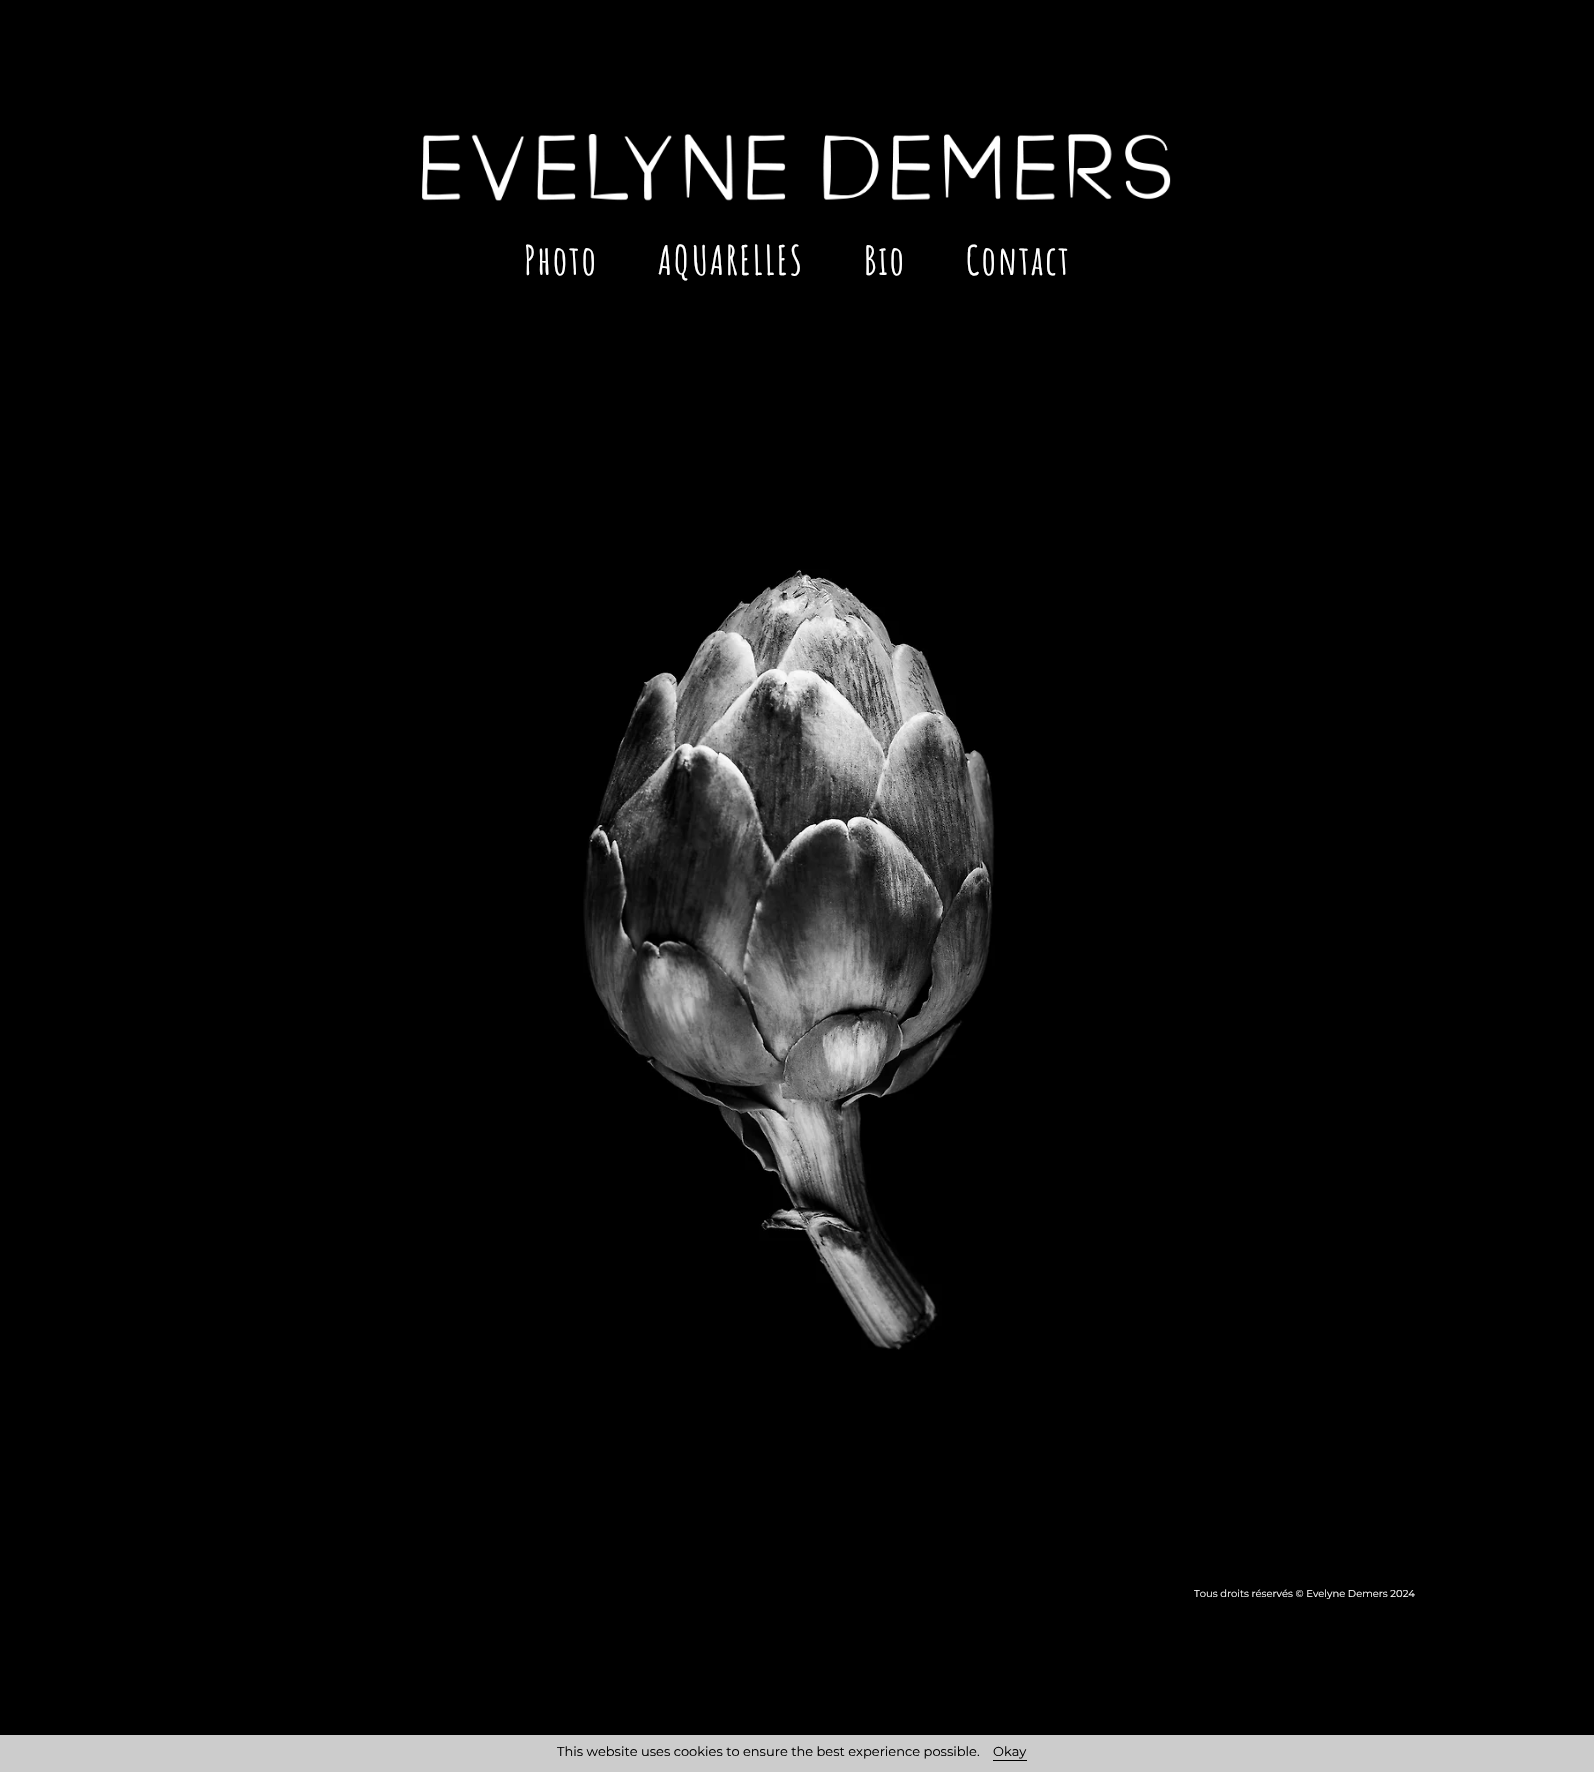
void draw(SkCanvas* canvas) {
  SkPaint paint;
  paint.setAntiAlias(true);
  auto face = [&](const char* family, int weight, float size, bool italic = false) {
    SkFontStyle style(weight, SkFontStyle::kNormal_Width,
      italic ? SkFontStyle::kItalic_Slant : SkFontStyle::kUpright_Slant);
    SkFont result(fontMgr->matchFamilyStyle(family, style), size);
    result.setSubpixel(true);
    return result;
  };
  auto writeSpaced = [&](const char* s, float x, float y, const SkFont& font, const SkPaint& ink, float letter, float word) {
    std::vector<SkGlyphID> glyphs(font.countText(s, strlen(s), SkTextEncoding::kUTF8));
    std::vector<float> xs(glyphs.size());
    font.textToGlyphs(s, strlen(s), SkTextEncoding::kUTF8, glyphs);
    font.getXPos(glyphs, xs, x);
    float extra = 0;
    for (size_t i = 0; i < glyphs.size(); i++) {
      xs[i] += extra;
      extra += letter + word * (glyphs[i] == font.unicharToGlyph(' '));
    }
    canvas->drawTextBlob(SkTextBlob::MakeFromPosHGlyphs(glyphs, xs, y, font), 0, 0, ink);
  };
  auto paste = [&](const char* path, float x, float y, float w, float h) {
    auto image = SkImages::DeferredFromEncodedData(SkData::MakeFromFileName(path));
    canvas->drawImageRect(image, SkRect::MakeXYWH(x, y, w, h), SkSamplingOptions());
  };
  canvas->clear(0xff000000);
  paste("img/1.png", 422, 134, 749, 67);
  paste("img/2.png", 583, 569, 412, 781);
  paint.setColor(0xffcccccc);
  canvas->drawRect(SkRect::MakeXYWH(0, 1735, 1594, 37), paint);
  paint.setColor(0xff000000);
  canvas->drawRect(SkRect::MakeXYWH(993, 1760, 34, 1), paint);
  auto f0 = face("Amatic SC", 700, 40);
  paint.setColor(0xffffffff);
  {
    const struct { const char* s; float x, y; } items[] = {
      {"Photo", 524, 275},
      {"AQUARELLES", 658, 275},
      {"Bio", 864, 275},
      {"Contact", 966, 275},
    };
    for (auto [s, x, y] : items) {
      writeSpaced(s, x, y, f0, paint, 2, 0);
    }
  }
  auto f1 = face("Montserrat", 400, 10);
  canvas->drawString("Tous droits réservés © Evelyne Demers 2024", 1194, 1597, f1, paint);
  auto f2 = face("Montserrat", 400, 13);
  paint.setColor(0xff000000);
  canvas->drawString("This website uses cookies to ensure the best experience possible.", 557, 1756, f2, paint);
  canvas->drawString("Okay", 993, 1756, f2, paint);
}
